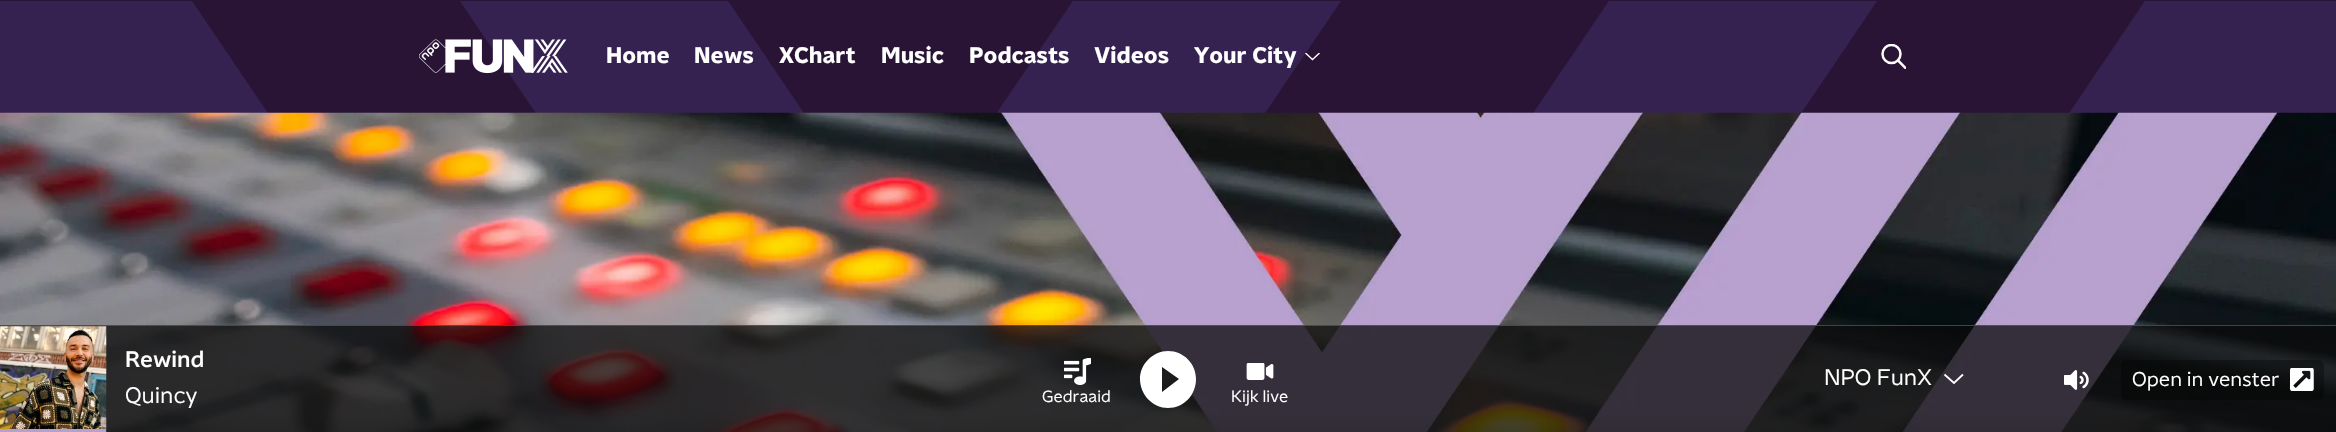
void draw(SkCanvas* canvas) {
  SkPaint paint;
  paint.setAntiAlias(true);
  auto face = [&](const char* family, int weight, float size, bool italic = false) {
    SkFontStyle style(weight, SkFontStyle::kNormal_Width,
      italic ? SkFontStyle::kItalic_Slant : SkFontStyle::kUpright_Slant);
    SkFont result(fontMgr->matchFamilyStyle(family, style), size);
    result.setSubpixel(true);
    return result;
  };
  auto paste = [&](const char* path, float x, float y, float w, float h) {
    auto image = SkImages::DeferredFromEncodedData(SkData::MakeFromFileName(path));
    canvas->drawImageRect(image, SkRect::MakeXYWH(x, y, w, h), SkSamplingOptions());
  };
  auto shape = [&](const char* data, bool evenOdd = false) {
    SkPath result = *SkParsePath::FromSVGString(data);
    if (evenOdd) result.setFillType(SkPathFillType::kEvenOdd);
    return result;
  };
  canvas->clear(0xff291436);
  paint.setColor(0xff362250);
  canvas->drawPath(shape("M2049 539L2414 1H2145L1781 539ZM1513 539L1877 1H1609L1245 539ZM-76 1H192L556 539H288ZM977 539L1034 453L1341 1H1073L900 255L728 1H460L766 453L708 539Z"), paint);
  paste("img/1.png", 419, 39, 149, 35);
  canvas->save();
  canvas->clipRect(SkRect::MakeXYWH(1305, 53, 15, 8));
  paint.setStroke(true);
  paint.setStrokeWidth(1.4f);
  paint.setColor(0xffffffff);
  canvas->drawPath(shape("M1305.5 53L1312.5 59.5L1319.5 53"), paint);
  canvas->restore();
  canvas->save();
  canvas->clipRect(SkRect::MakeXYWH(1881, 44, 25, 25));
  paint.setStrokeWidth(2.5f);
  canvas->drawCircle(1891.5f, 54, 9, paint);
  paint.setStrokeCap(SkPaint::kSquare_Cap);
  canvas->drawPath(shape("M1898 60.5L1905.5 68"), paint);
  canvas->restore();
  paste("img/2.png", 0, 112, 2336, 320);
  paint.setStroke(false);
  paint.setColor(0xbf090909);
  canvas->drawRect(SkRect::MakeXYWH(0, 325, 2336, 107), paint);
  paint.setColor(0xa65f5f5f);
  canvas->drawRect(SkRect::MakeXYWH(0, 325, 2336, 1), paint);
  paste("img/3.png", 0, 326, 107, 106);
  paint.setColor(0xffb79fcf);
  canvas->drawRect(SkRect::MakeXYWH(0, 429, 106, 3), paint);
  paint.setStroke(true);
  paint.setStrokeWidth(1.8f);
  paint.setStrokeCap(SkPaint::kButt_Cap);
  paint.setColor(0xffffffff);
  canvas->drawPath(shape("M1944.5 374.5L1954 383L1963 374.5"), paint);
  paste("img/4.png", 2064, 370, 25, 20);
  paint.setStroke(false);
  paint.setColor(0x59000000);
  canvas->drawRoundRect(SkRect::MakeXYWH(2121, 360, 203, 40), 6, 6, paint);
  paste("img/5.png", 2290, 368, 24, 23);
  paste("img/6.png", 1064, 358, 27, 27);
  paint.setColor(0xffffffff);
  canvas->drawPath(shape("M1168 351C1153 351 1140 364 1140 379C1140 395 1153 408 1168 408C1184 408 1196 395 1196 379C1196 364 1184 351 1168 351ZM1162 392V367L1179 379Z"), paint);
  paste("img/7.png", 1246, 363, 28, 17);
  auto f0 = face("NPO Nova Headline", 700, 22.5f);
  {
    const struct { const char* s; float x, y; } items[] = {
      {"Home", 606, 63},
      {"News", 694, 63},
      {"XChart", 779, 63},
      {"Music", 881, 63},
      {"Podcasts", 969, 63},
      {"Videos", 1094, 63},
      {"Your City", 1194, 63},
    };
    for (auto [s, x, y] : items) {
      canvas->drawString(s, x, y, f0, paint);
    }
  }
  auto f1 = face("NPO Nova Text", 500, 22.5f);
  canvas->drawString("Rewind", 125, 367, f1, paint);
  auto f2 = face("NPO Nova Text", 400, 22.5f);
  canvas->drawString("Quincy", 125, 403, f2, paint);
  canvas->drawString("NPO FunX", 1824, 385, f2, paint);
  auto f3 = face("NPO Nova Text", 400, 20);
  canvas->drawString("Open in venster", 2132, 386, f3, paint);
  auto f4 = face("NPO Nova Text", 400, 16.25f);
  canvas->drawString("Gedraaid", 1042, 402, f4, paint);
  canvas->drawString("Kijk live", 1231, 402, f4, paint);
}
